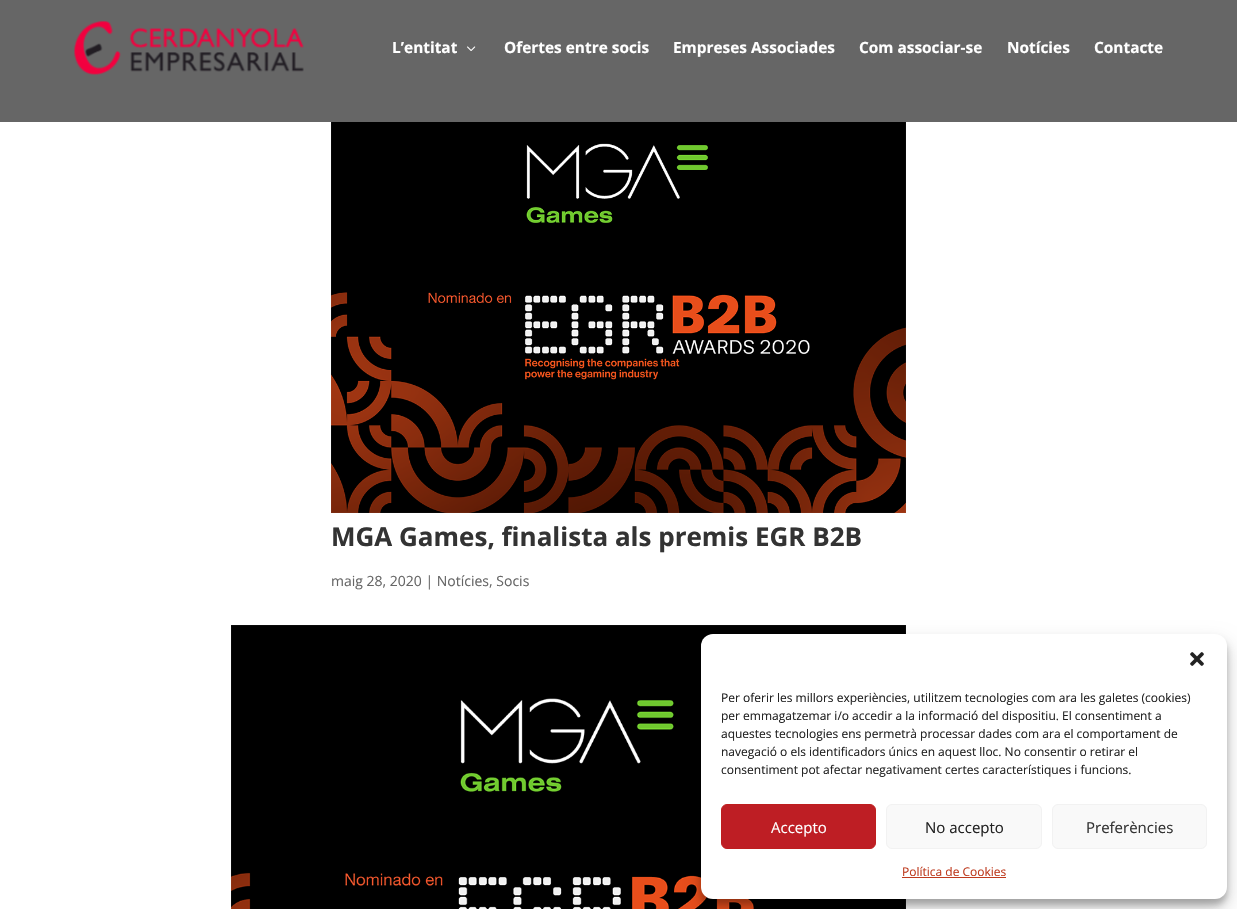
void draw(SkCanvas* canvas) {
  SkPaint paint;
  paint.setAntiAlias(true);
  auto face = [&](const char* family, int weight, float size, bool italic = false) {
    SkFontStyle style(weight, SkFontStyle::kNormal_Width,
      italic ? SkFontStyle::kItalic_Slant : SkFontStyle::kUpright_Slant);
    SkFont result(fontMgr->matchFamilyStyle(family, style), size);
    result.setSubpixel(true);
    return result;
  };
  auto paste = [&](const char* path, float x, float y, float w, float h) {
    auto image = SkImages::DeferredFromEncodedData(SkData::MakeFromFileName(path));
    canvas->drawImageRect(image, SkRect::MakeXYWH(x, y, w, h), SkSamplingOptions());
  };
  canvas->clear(0xffffffff);
  paint.setColor(0xff666666);
  canvas->drawRect(SkRect::MakeXYWH(0, 0, 1237, 122), paint);
  paste("img/1.png", 74, 21, 230, 54);
  paste("img/2.png", 467, 46, 9, 5);
  paste("img/3.png", 331, 122, 575, 391);
  paste("img/4.png", 231, 625, 675, 284);
  paint.setColor(0x3b000000);
  paint.setMaskFilter(SkMaskFilter::MakeBlur(kNormal_SkBlurStyle, 3));
  canvas->drawRoundRect(SkRect::MakeXYWH(701, 640, 526, 265), 12, 12, paint);
  paint.setMaskFilter(nullptr);
  paint.setColor(0x30000000);
  paint.setMaskFilter(SkMaskFilter::MakeBlur(kNormal_SkBlurStyle, 10));
  canvas->drawRoundRect(SkRect::MakeXYWH(701, 644, 526, 265), 12, 12, paint);
  paint.setMaskFilter(nullptr);
  paint.setColor(0xffffffff);
  canvas->drawRoundRect(SkRect::MakeXYWH(701, 634, 526, 265), 12, 12, paint);
  paste("img/5.png", 1190, 652, 14, 14);
  paint.setColor(0xffbe1e24);
  canvas->drawRoundRect(SkRect::MakeXYWH(721.5f, 804.5f, 154, 44), 5.5f, 5.5f, paint);
  paint.setStroke(true);
  paint.setStrokeWidth(1);
  paint.setColor(0xffbe1e1e);
  canvas->drawRoundRect(SkRect::MakeXYWH(721.5f, 804.5f, 154, 44), 5.5f, 5.5f, paint);
  paint.setStroke(false);
  paint.setColor(0xfff9f9f9);
  canvas->drawRoundRect(SkRect::MakeXYWH(886.5f, 804.5f, 155, 44), 5.5f, 5.5f, paint);
  paint.setStroke(true);
  paint.setColor(0xfff2f2f2);
  canvas->drawRoundRect(SkRect::MakeXYWH(886.5f, 804.5f, 155, 44), 5.5f, 5.5f, paint);
  paint.setStroke(false);
  paint.setColor(0xfff9f9f9);
  canvas->drawRoundRect(SkRect::MakeXYWH(1052.5f, 804.5f, 154, 44), 5.5f, 5.5f, paint);
  paint.setStroke(true);
  paint.setColor(0xfff2f2f2);
  canvas->drawRoundRect(SkRect::MakeXYWH(1052.5f, 804.5f, 154, 44), 5.5f, 5.5f, paint);
  paint.setStroke(false);
  paint.setColor(0xffbe3a1e);
  canvas->drawRect(SkRect::MakeXYWH(902, 877, 104, 1), paint);
  auto f0 = face("Open Sans", 700, 15.4f);
  paint.setColor(0xffffffff);
  {
    const struct { const char* s; float x, y; } items[] = {
      {"L’entitat", 392, 53},
      {"Ofertes entre socis", 504, 53},
      {"Empreses Associades", 673, 53},
      {"Com associar-se", 859, 53},
      {"Notícies", 1007, 53},
      {"Contacte", 1094, 53},
    };
    for (auto [s, x, y] : items) {
      canvas->drawString(s, x, y, f0, paint);
    }
  }
  auto f1 = face("Open Sans", 700, 26);
  paint.setColor(0xff333333);
  canvas->drawString("MGA Games, finalista als premis EGR B2B", 331, 546, f1, paint);
  auto f2 = face("Open Sans", 400, 14);
  paint.setColor(0xff666666);
  canvas->drawString("maig 28, 2020 | Notícies, Socis", 331, 586, f2, paint);
  auto f3 = face("Open Sans", 400, 12);
  paint.setColor(0xff222222);
  {
    const struct { const char* s; float x, y; } items[] = {
      {"Per oferir les millors experiències, utilitzem tecnologies com ara les galetes (cookies)", 721, 702},
      {"per emmagatzemar i/o accedir a la informació del dispositiu. El consentiment a", 721, 720},
      {"aquestes tecnologies ens permetrà processar dades com ara el comportament de", 721, 738},
      {"navegació o els identificadors únics en aquest lloc. No consentir o retirar el", 721, 756},
      {"consentiment pot afectar negativament certes característiques i funcions.", 721, 774},
    };
    for (auto [s, x, y] : items) {
      canvas->drawString(s, x, y, f3, paint);
    }
  }
  auto f4 = face("Open Sans", 400, 15);
  paint.setColor(0xffffffff);
  canvas->drawString("Accepto", 771, 833, f4, paint);
  paint.setColor(0xff222222);
  canvas->drawString("No accepto", 925, 833, f4, paint);
  paint.setColor(0xff333333);
  canvas->drawString("Preferències", 1086, 833, f4, paint);
  paint.setColor(0xffbe3a1e);
  canvas->drawString("Política de Cookies", 902, 876, f3, paint);
}
